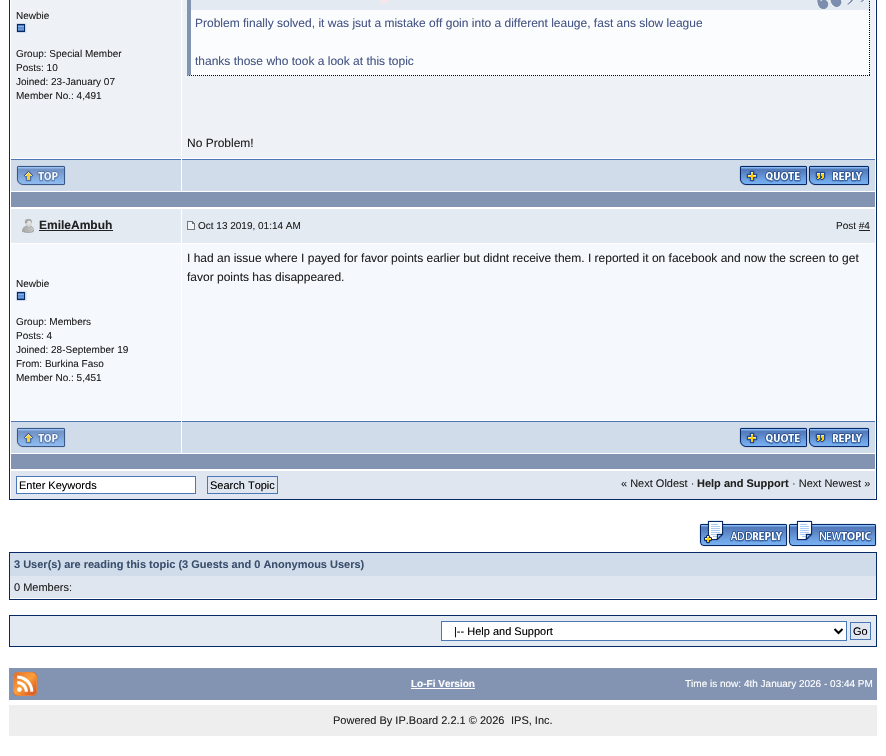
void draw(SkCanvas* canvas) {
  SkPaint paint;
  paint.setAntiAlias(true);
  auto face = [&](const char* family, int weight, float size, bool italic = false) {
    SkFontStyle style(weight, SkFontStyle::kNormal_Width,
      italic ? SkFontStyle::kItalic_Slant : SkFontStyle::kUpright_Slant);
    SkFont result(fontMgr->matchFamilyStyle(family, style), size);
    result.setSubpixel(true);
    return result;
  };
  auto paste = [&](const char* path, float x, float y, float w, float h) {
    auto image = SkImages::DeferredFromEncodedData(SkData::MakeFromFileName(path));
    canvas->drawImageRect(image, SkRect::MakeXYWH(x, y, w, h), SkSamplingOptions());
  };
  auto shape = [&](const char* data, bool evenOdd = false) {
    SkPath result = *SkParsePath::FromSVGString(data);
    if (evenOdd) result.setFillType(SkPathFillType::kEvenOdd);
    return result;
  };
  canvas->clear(0xffffffff);
  paint.setStroke(true);
  paint.setStrokeWidth(1);
  paint.setColor(0xff072a66);
  canvas->drawRect(SkRect::MakeXYWH(9.5f, -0.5f, 867, 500), paint);
  paint.setStroke(false);
  paint.setColor(0xffeef2f7);
  canvas->drawRect(SkRect::MakeXYWH(11, 0, 170, 158), paint);
  paste("img/1.png", 16, 23, 11, 10);
  canvas->drawRect(SkRect::MakeXYWH(182, 0, 693, 158), paint);
  paint.setColor(0xffe4eaf2);
  canvas->drawRect(SkRect::MakeXYWH(191, 0, 679, 10), paint);
  paste("img/2.png", 817, 0, 48, 9);
  paint.setStroke(true);
  paint.setColor(0xff000000);
  paint.setPathEffect(SkDashPathEffect::Make({{1, 1}}, 0));
  canvas->drawPath(shape("M869.5-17V10"), paint);
  paint.setPathEffect(nullptr);
  paint.setStroke(false);
  paint.setColor(0xff8394b2);
  canvas->drawPath(shape("M187 10V-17L191-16V10Z"), paint);
  paint.setColor(0xfff4e7ea);
  canvas->drawRect(SkRect::MakeXYWH(380, 0, 10, 3), paint);
  paint.setColor(0xfffafcfe);
  canvas->drawRect(SkRect::MakeXYWH(188, 10, 682, 66), paint);
  paint.setStroke(true);
  paint.setColor(0xff000000);
  paint.setPathEffect(SkDashPathEffect::Make({{1, 1}}, 0));
  canvas->drawPath(shape("M869.5 10V76"), paint);
  paint.setPathEffect(nullptr);
  paint.setPathEffect(SkDashPathEffect::Make({{1, 1}}, 0));
  canvas->drawPath(shape("M187 75.5H870"), paint);
  paint.setPathEffect(nullptr);
  paint.setStroke(false);
  paint.setColor(0xff8394b2);
  canvas->drawPath(shape("M187 76V10H191V75Z"), paint);
  paint.setColor(0xffd1dceb);
  canvas->drawRect(SkRect::MakeXYWH(11, 160, 170, 31), paint);
  paint.setColor(0xff5176b5);
  canvas->drawRect(SkRect::MakeXYWH(11, 159, 170, 1), paint);
  paste("img/3.png", 16, 165, 50, 21);
  paint.setColor(0xffd1dceb);
  canvas->drawRect(SkRect::MakeXYWH(182, 160, 693, 31), paint);
  paint.setColor(0xff5176b5);
  canvas->drawRect(SkRect::MakeXYWH(182, 159, 693, 1), paint);
  paste("img/4.png", 739, 165, 69, 21);
  paste("img/5.png", 808, 165, 62, 21);
  paint.setColor(0xff8394b2);
  canvas->drawRect(SkRect::MakeXYWH(11, 192, 864, 15), paint);
  paint.setColor(0xffe4eaf2);
  canvas->drawRect(SkRect::MakeXYWH(11, 209, 170, 34), paint);
  paste("img/6.png", 22, 219, 12, 14);
  paint.setColor(0xff222222);
  canvas->drawRect(SkRect::MakeXYWH(39, 230, 74, 1), paint);
  paint.setColor(0xffe4eaf2);
  canvas->drawRect(SkRect::MakeXYWH(182, 209, 693, 34), paint);
  paste("img/7.png", 187, 221, 8, 9);
  {
    const struct { float x, y, w, h; SkColor color; } items[] = {
      {859, 230, 11, 1, 0xff222222},
      {182, 244, 693, 176, 0xfff5f9fd},
      {11, 244, 170, 176, 0xfff5f9fd},
    };
    for (auto [x, y, w, h, color] : items) {
      paint.setColor(color);
      canvas->drawRect(SkRect::MakeXYWH(x, y, w, h), paint);
    }
  }
  paste("img/1.png", 16, 291, 11, 10);
  paint.setColor(0xffd1dceb);
  canvas->drawRect(SkRect::MakeXYWH(11, 422, 170, 31), paint);
  paint.setColor(0xff5176b5);
  canvas->drawRect(SkRect::MakeXYWH(11, 421, 170, 1), paint);
  paste("img/3.png", 16, 427, 50, 21);
  paint.setColor(0xffd1dceb);
  canvas->drawRect(SkRect::MakeXYWH(182, 422, 693, 31), paint);
  paint.setColor(0xff5176b5);
  canvas->drawRect(SkRect::MakeXYWH(182, 421, 693, 1), paint);
  paste("img/4.png", 739, 427, 69, 21);
  paste("img/5.png", 808, 427, 62, 21);
  paint.setColor(0xff8394b2);
  canvas->drawRect(SkRect::MakeXYWH(11, 454, 864, 15), paint);
  paint.setColor(0xffdfe6ef);
  canvas->drawRect(SkRect::MakeXYWH(11, 471, 864, 28), paint);
  paint.setColor(0xffffffff);
  canvas->drawRect(SkRect::MakeXYWH(16.5f, 476.5f, 179, 17), paint);
  paint.setStroke(true);
  paint.setColor(0xff4c77b6);
  canvas->drawRect(SkRect::MakeXYWH(16.5f, 476.5f, 179, 17), paint);
  canvas->drawRect(SkRect::MakeXYWH(207.5f, 476.5f, 70, 17), paint);
  paste("img/8.png", 699, 520, 89, 27);
  paste("img/9.png", 788, 520, 89, 27);
  paint.setColor(0xff072a66);
  canvas->drawRect(SkRect::MakeXYWH(9.5f, 552.5f, 867, 47), paint);
  paint.setStroke(false);
  paint.setColor(0xffd1dceb);
  canvas->drawRect(SkRect::MakeXYWH(10, 553, 866, 23), paint);
  paint.setColor(0xffdfe6ef);
  canvas->drawRect(SkRect::MakeXYWH(10, 576, 866, 22), paint);
  paint.setStroke(true);
  paint.setColor(0xff072a66);
  canvas->drawRect(SkRect::MakeXYWH(9.5f, 615.5f, 867, 31), paint);
  paint.setStroke(false);
  paint.setColor(0xffe4eaf2);
  canvas->drawRect(SkRect::MakeXYWH(10, 616, 866, 30), paint);
  paint.setColor(0xffffffff);
  canvas->drawRect(SkRect::MakeXYWH(441.5f, 621.5f, 405, 19), paint);
  paint.setStroke(true);
  paint.setColor(0xff4c77b6);
  canvas->drawRect(SkRect::MakeXYWH(441.5f, 621.5f, 405, 19), paint);
  paint.setStrokeWidth(2);
  paint.setColor(0xff000000);
  canvas->drawPath(shape("M834.5 629L838.5 633L842.5 629"), paint);
  paint.setStroke(false);
  paint.setColor(0xffdfe6ef);
  canvas->drawRect(SkRect::MakeXYWH(850.5f, 622.5f, 20, 17), paint);
  paint.setStroke(true);
  paint.setStrokeWidth(1);
  paint.setColor(0xff4c77b6);
  canvas->drawRect(SkRect::MakeXYWH(850.5f, 622.5f, 20, 17), paint);
  paint.setStroke(false);
  paint.setColor(0xff8394b2);
  canvas->drawRect(SkRect::MakeXYWH(9, 668, 868, 32), paint);
  paste("img/10.png", 13, 672, 24, 24);
  paint.setColor(0xffffffff);
  canvas->drawRect(SkRect::MakeXYWH(411, 688, 64, 1), paint);
  paint.setColor(0xffeeeeee);
  canvas->drawRect(SkRect::MakeXYWH(9, 705, 868, 31), paint);
  auto f0 = face("Liberation Sans", 400, 10);
  paint.setColor(0xff222222);
  {
    const struct { const char* s; float x, y; } items[] = {
      {"Newbie", 16, 19},
      {"Group: Special Member", 16, 57},
      {"Posts: 10", 16, 71},
      {"Joined: 23-January 07", 16, 85},
      {"Member No.: 4,491", 16, 99},
    };
    for (auto [s, x, y] : items) {
      canvas->drawString(s, x, y, f0, paint);
    }
  }
  auto f1 = face("Liberation Sans", 400, 12);
  paint.setColor(0xff465584);
  canvas->drawString("Problem finally solved, it was jsut a mistake off goin into a different leauge, fast ans slow league", 195, 27, f1, paint);
  canvas->drawString("thanks those who took a look at this topic", 195, 65, f1, paint);
  paint.setColor(0xff222222);
  canvas->drawString("No Problem!", 187, 147, f1, paint);
  auto f2 = face("Liberation Sans", 700, 12);
  canvas->drawString("EmileAmbuh", 39, 229, f2, paint);
  canvas->drawString("Oct 13 2019, 01:14 AM", 198, 229, f0, paint);
  canvas->drawString("Post #4", 836, 229, f0, paint);
  canvas->drawString("I had an issue where I payed for favor points earlier but didnt receive them. I reported it on facebook and now the screen to get", 187, 262, f1, paint);
  canvas->drawString("favor points has disappeared.", 187, 281, f1, paint);
  {
    const struct { const char* s; float x, y; } items[] = {
      {"Newbie", 16, 287},
      {"Group: Members", 16, 325},
      {"Posts: 4", 16, 339},
      {"Joined: 28-September 19", 16, 353},
      {"From: Burkina Faso", 16, 367},
      {"Member No.: 5,451", 16, 381},
    };
    for (auto [s, x, y] : items) {
      canvas->drawString(s, x, y, f0, paint);
    }
  }
  auto f3 = face("Liberation Sans", 400, 11);
  paint.setColor(0xff000000);
  canvas->drawString("Enter Keywords", 19, 489, f3, paint);
  canvas->drawString("Search Topic", 210, 489, f3, paint);
  paint.setColor(0xff222222);
  canvas->drawString("« Next Oldest ·", 621, 487, f3, paint);
  auto f4 = face("Liberation Sans", 700, 11);
  canvas->drawString("Help and Support", 697, 487, f4, paint);
  canvas->drawString("· Next Newest »", 792, 487, f3, paint);
  paint.setColor(0xff3a4f6c);
  canvas->drawString("3 User(s) are reading this topic (3 Guests and 0 Anonymous Users)", 14, 568, f4, paint);
  paint.setColor(0xff222222);
  canvas->drawString("0 Members:", 14, 591, f3, paint);
  paint.setColor(0xff000000);
  canvas->drawString("|-- Help and Support", 454, 635, f3, paint);
  canvas->drawString("Go", 853, 635, f3, paint);
  auto f5 = face("Liberation Sans", 700, 10);
  paint.setColor(0xffffffff);
  canvas->drawString("Lo-Fi Version", 411, 687, f5, paint);
  canvas->drawString("Time is now: 4th January 2026 - 03:44 PM", 685, 687, f0, paint);
  paint.setColor(0xff222222);
  canvas->drawString("Powered By IP.Board 2.2.1 © 2026", 333, 724, f3, paint);
  canvas->drawString("IPS, Inc.", 511, 724, f3, paint);
}
